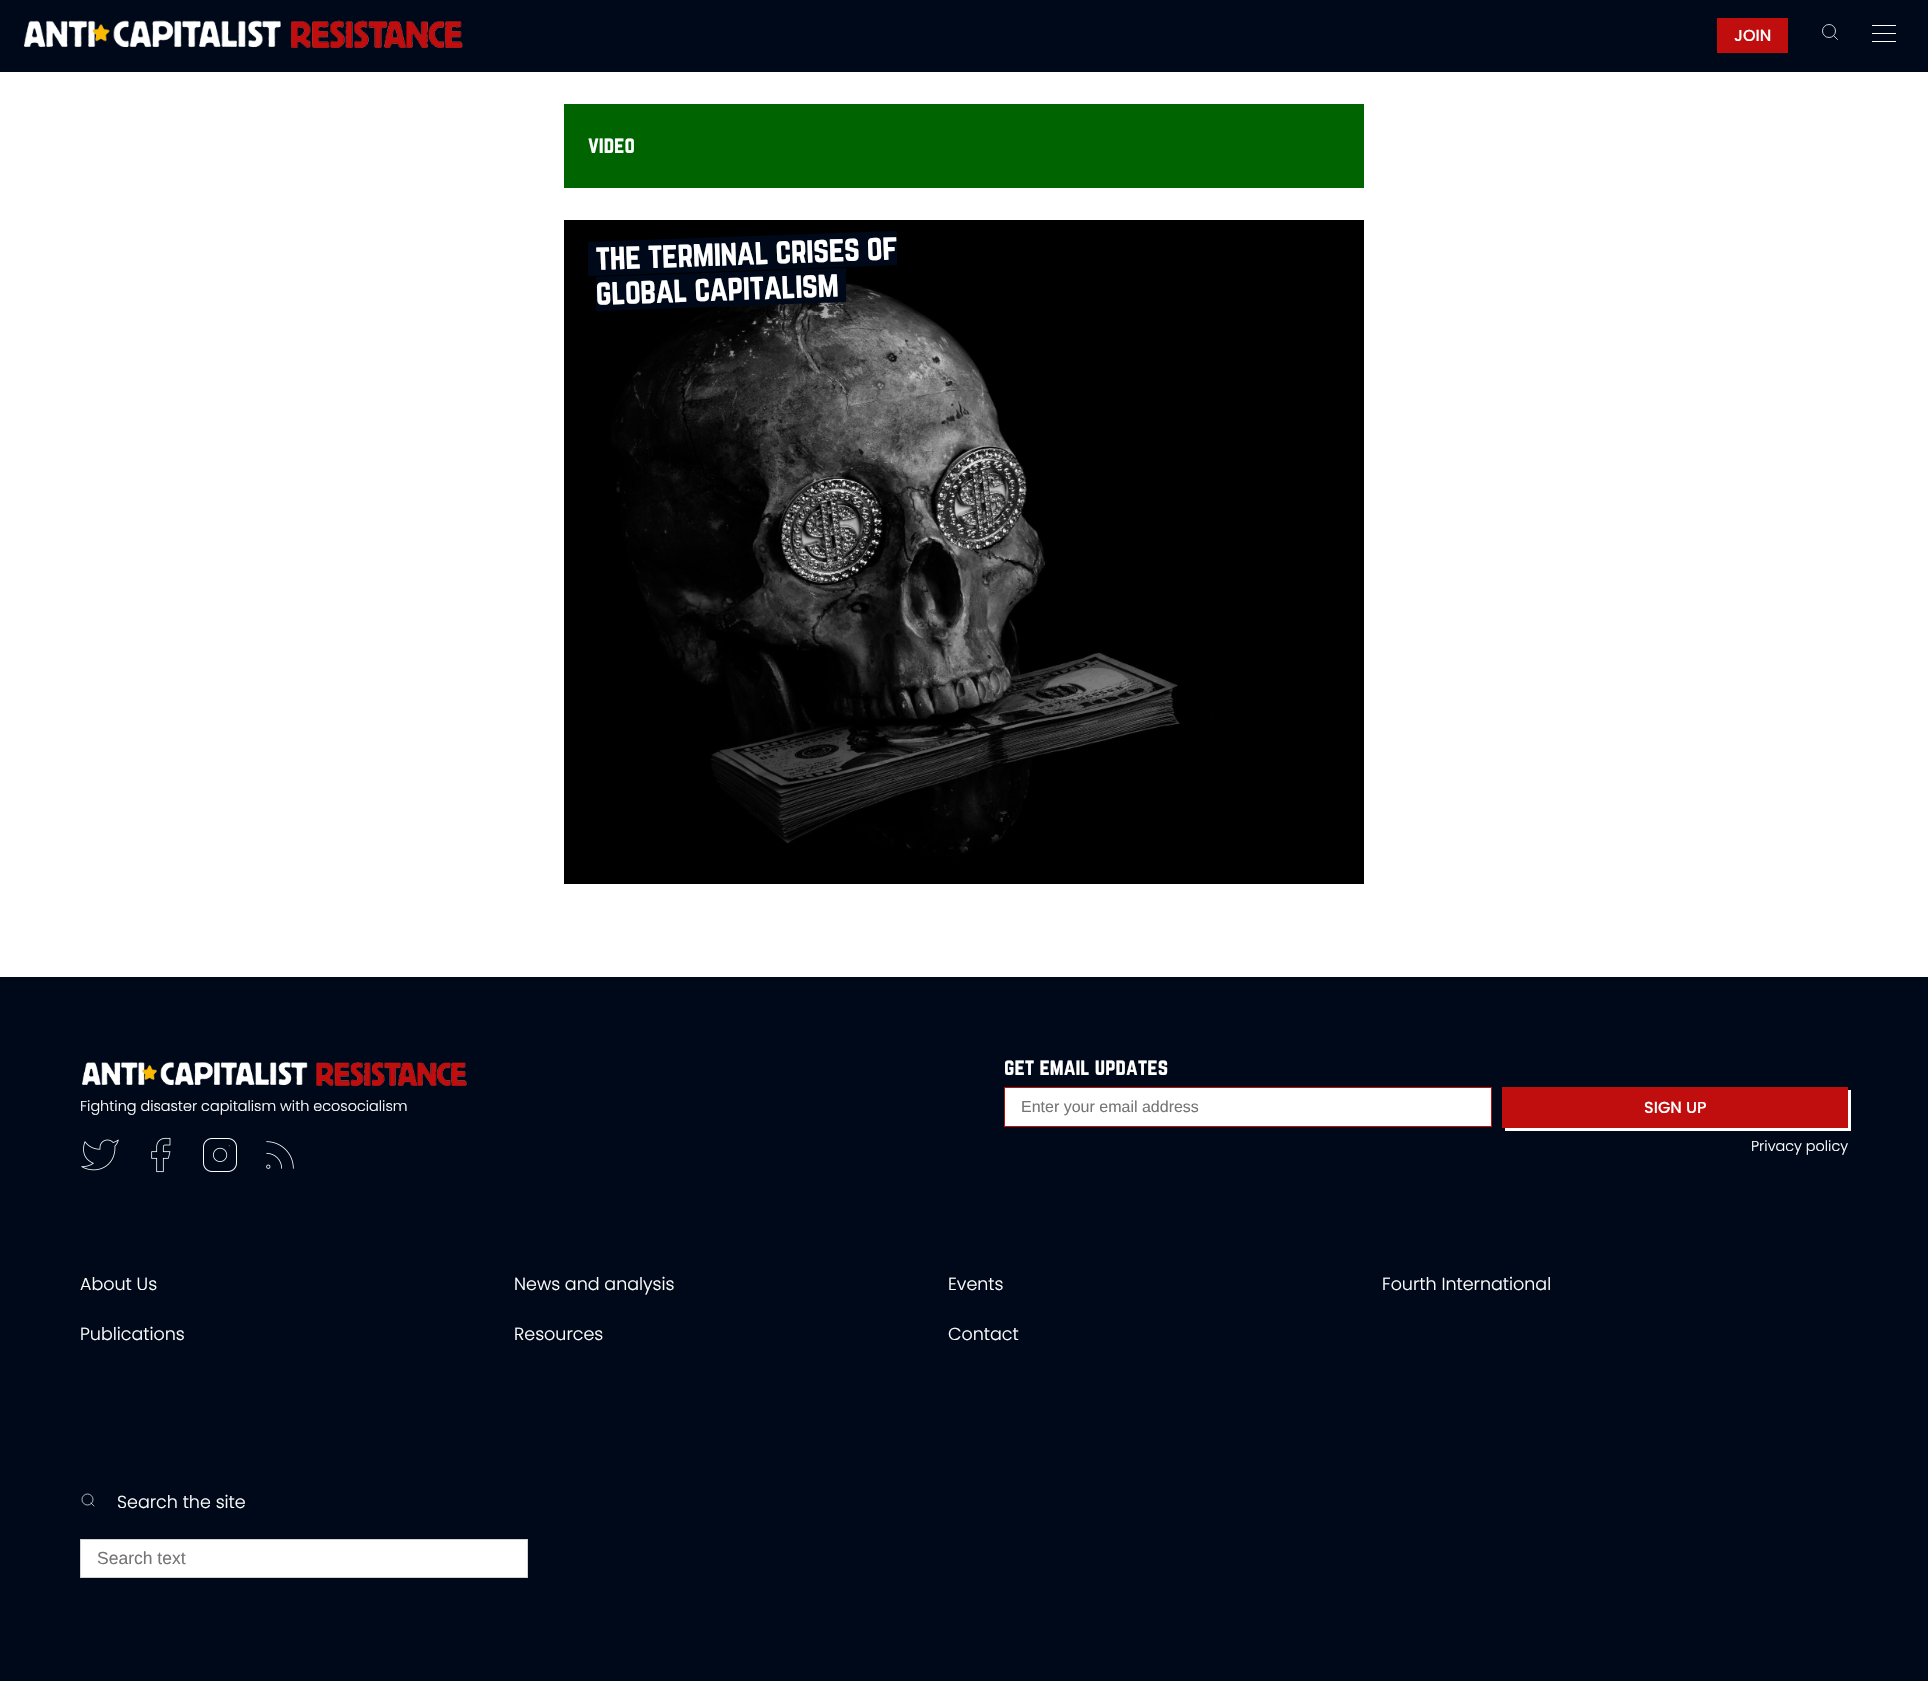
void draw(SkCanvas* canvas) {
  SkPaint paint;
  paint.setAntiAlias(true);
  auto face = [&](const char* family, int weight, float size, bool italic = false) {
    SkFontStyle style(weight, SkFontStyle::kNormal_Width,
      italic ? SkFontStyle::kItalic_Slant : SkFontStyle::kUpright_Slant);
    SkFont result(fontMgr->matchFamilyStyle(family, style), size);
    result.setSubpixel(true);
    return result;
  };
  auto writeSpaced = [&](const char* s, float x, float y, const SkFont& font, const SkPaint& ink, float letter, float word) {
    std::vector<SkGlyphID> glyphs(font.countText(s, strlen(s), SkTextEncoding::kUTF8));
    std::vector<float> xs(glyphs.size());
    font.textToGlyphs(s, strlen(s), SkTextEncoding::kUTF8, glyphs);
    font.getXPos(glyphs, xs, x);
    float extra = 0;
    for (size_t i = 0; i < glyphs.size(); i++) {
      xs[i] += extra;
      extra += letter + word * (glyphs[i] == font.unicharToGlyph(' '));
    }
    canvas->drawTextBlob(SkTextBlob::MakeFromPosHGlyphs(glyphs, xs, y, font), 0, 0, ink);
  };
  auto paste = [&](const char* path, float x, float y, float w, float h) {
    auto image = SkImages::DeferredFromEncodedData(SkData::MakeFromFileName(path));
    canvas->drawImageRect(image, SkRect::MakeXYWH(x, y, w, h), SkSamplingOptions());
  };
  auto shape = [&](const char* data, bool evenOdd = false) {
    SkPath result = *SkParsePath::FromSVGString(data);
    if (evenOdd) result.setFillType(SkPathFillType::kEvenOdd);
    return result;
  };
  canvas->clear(0xffffffff);
  paint.setColor(0xff000919);
  canvas->drawRect(SkRect::MakeXYWH(0, 0, 1928, 72), paint);
  paste("img/1.png", 23, 20, 440, 28);
  paint.setColor(0xffc00e0e);
  canvas->drawRect(SkRect::MakeXYWH(1717, 18, 71, 35), paint);
  paint.setStroke(true);
  paint.setStrokeWidth(0.8f);
  paint.setColor(0xffffffff);
  canvas->drawCircle(1829, 31, 6.5f, paint);
  paint.setStrokeCap(SkPaint::kRound_Cap);
  paint.setStrokeJoin(SkPaint::kRound_Join);
  canvas->drawPath(shape("M1837.5 39.5L1834 36"), paint);
  paint.setStroke(false);
  {
    const struct { float x, y, w, h; SkColor color; } items[] = {
      {1872, 25, 24, 1, 0xffffffff},
      {1872, 33, 24, 1, 0xffffffff},
      {1872, 41, 24, 1, 0xffffffff},
      {564, 104, 800, 84, 0xff006400},
    };
    for (auto [x, y, w, h, color] : items) {
      paint.setColor(color);
      canvas->drawRect(SkRect::MakeXYWH(x, y, w, h), paint);
    }
  }
  paste("img/2.png", 564, 220, 800, 664);
  paint.setColor(0xff000919);
  canvas->drawPath(shape("M588 242L897 231V265L588 276Z"), paint);
  canvas->drawPath(shape("M596 277L846 268V302L596 311Z"), paint);
  canvas->drawRect(SkRect::MakeXYWH(0, 977, 1928, 704), paint);
  paste("img/3.png", 81, 1062, 386, 24);
  paste("img/4.png", 81, 1139, 38, 32);
  paste("img/5.png", 151, 1137, 20, 36);
  paste("img/6.png", 203, 1138, 34, 34);
  paste("img/7.png", 266, 1141, 28, 28);
  paint.setColor(0xffffffff);
  canvas->drawRect(SkRect::MakeXYWH(1004.5f, 1087.5f, 487, 39), paint);
  paint.setStroke(true);
  paint.setStrokeWidth(1);
  paint.setStrokeCap(SkPaint::kButt_Cap);
  paint.setStrokeJoin(SkPaint::kMiter_Join);
  paint.setColor(0xffc00e0e);
  canvas->drawRect(SkRect::MakeXYWH(1004.5f, 1087.5f, 487, 39), paint);
  paint.setStroke(false);
  paint.setColor(0xffffffff);
  canvas->drawPath(shape("M1505 1128V1131H1851V1090H1848V1128Z"), paint);
  paint.setColor(0xffc00e0e);
  canvas->drawRect(SkRect::MakeXYWH(1502, 1087, 346, 41), paint);
  paint.setStroke(true);
  paint.setStrokeWidth(0.7f);
  paint.setColor(0xffffffff);
  canvas->drawCircle(87.5f, 1499.5f, 5.5f, paint);
  paint.setStrokeCap(SkPaint::kRound_Cap);
  paint.setStrokeJoin(SkPaint::kRound_Join);
  canvas->drawPath(shape("M94 1506L91 1503"), paint);
  paint.setStroke(false);
  canvas->drawRect(SkRect::MakeXYWH(80.5f, 1539.5f, 447, 38), paint);
  paint.setStroke(true);
  paint.setStrokeWidth(1);
  paint.setStrokeCap(SkPaint::kButt_Cap);
  paint.setStrokeJoin(SkPaint::kMiter_Join);
  paint.setColor(0xffd3d3d3);
  canvas->drawRect(SkRect::MakeXYWH(80.5f, 1539.5f, 447, 38), paint);
  auto f0 = face("Poppins", 500, 16);
  paint.setStroke(false);
  paint.setColor(0xffffffff);
  canvas->drawString("JOIN", 1734, 41, f0, paint);
  auto f1 = face("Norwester", 400, 20.75f);
  canvas->drawString("video", 588, 153, f1, paint);
  auto f2 = face("Norwester", 400, 32);
  canvas->save();
  canvas->rotate(-2, 596, 270);
  writeSpaced("the terminal crises of", 596, 270, f2, paint, -0.6f, 0);
  canvas->restore();
  canvas->save();
  canvas->rotate(-2, 596, 305);
  writeSpaced("global capitalism", 596, 305, f2, paint, -0.6f, 0);
  canvas->restore();
  auto f3 = face("Poppins", 300, 14.4f);
  canvas->drawString("Fighting disaster capitalism with ecosocialism", 80, 1111, f3, paint);
  canvas->drawString("get email updates", 1004, 1075, f1, paint);
  auto f4 = face("Liberation Sans", 400, 16);
  paint.setColor(0xff757575);
  canvas->drawString("Enter your email address", 1021, 1112, f4, paint);
  paint.setColor(0xffffffff);
  canvas->drawString("SIGN UP", 1644, 1113, f0, paint);
  canvas->drawString("Privacy policy", 1751, 1151, f3, paint);
  auto f5 = face("Poppins", 300, 17.5f);
  {
    const struct { const char* s; float x, y; } items[] = {
      {"About Us", 80, 1290},
      {"News and analysis", 514, 1290},
      {"Events", 948, 1290},
      {"Fourth International", 1382, 1290},
      {"Publications", 80, 1340},
      {"Resources", 514, 1340},
      {"Contact", 948, 1340},
      {"Search the site", 117, 1508},
    };
    for (auto [s, x, y] : items) {
      canvas->drawString(s, x, y, f5, paint);
    }
  }
  auto f6 = face("Liberation Sans", 400, 17.5f);
  paint.setColor(0xff757575);
  canvas->drawString("Search text", 97, 1564, f6, paint);
}
